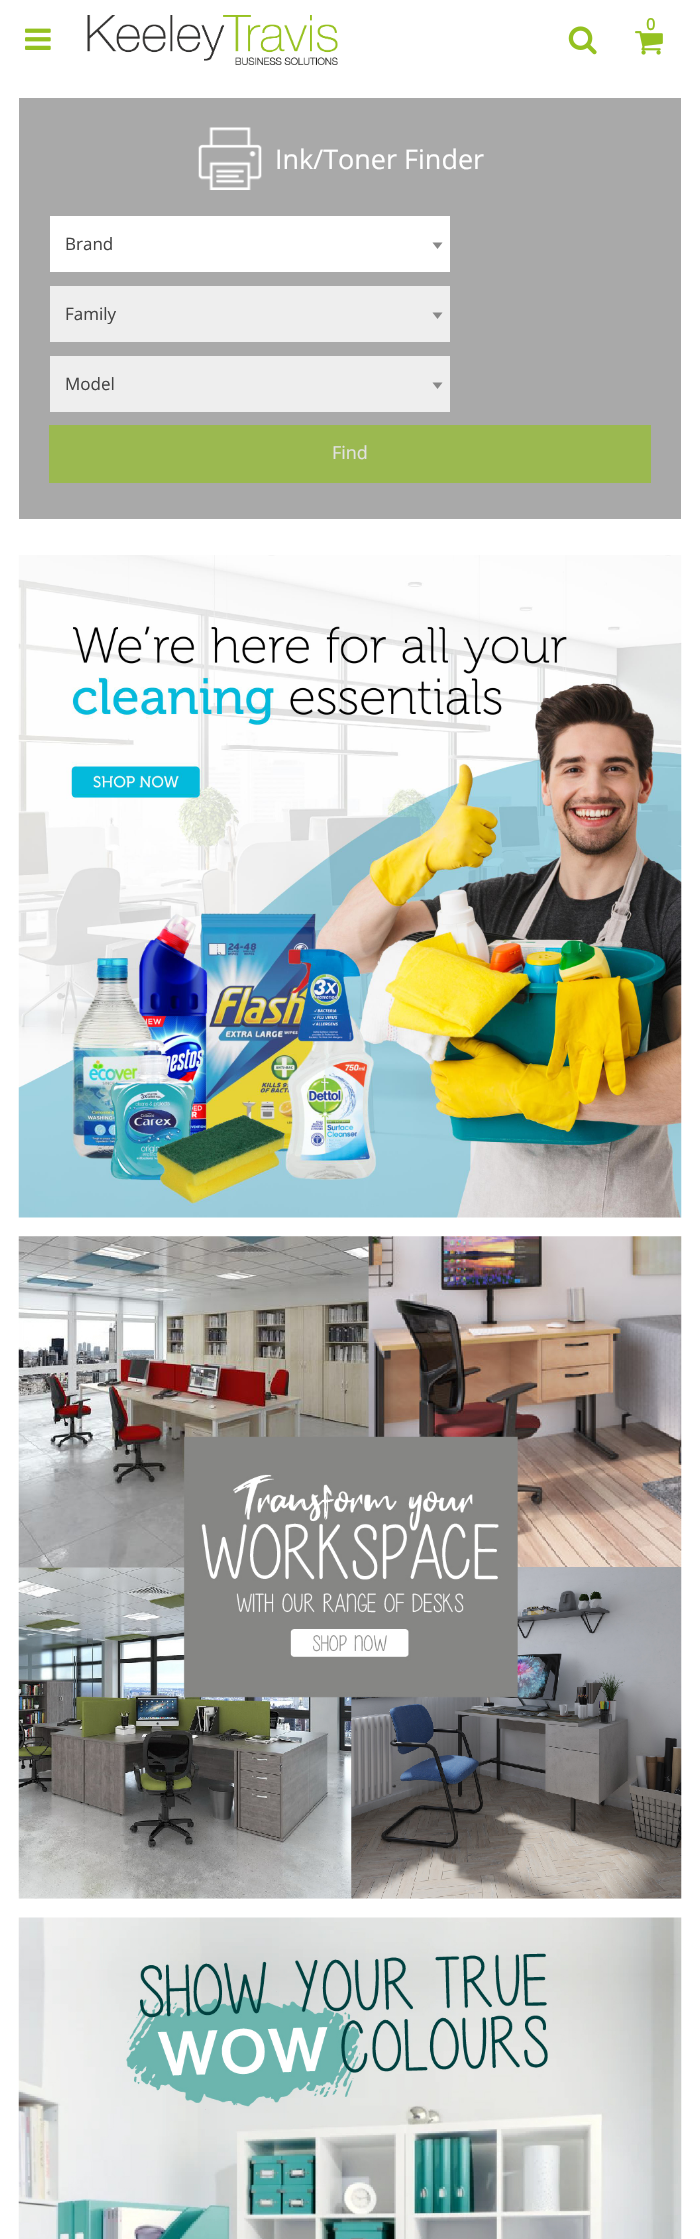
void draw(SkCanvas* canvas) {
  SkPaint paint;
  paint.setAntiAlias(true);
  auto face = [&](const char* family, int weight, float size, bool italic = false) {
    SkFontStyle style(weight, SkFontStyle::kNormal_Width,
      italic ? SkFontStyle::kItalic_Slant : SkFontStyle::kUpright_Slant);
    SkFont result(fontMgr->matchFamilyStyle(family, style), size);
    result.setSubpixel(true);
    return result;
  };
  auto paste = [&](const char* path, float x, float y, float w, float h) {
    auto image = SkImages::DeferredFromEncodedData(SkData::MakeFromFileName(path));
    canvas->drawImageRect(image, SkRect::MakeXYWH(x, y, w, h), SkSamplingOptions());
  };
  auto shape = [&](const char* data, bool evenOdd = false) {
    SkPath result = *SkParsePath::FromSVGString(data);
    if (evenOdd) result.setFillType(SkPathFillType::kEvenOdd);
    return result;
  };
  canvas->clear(0xffffffff);
  paste("img/1.png", 87, 15, 251, 50);
  paste("img/2.png", 635, 31, 28, 24);
  paste("img/3.png", 568, 26, 29, 29);
  paste("img/4.png", 25, 28, 26, 22);
  paint.setColor(0xffa9a9a9);
  canvas->drawRect(SkRect::MakeXYWH(19, 98, 662, 421), paint);
  paste("img/5.png", 198, 127, 64, 63);
  paint.setColor(0xffffffff);
  canvas->drawRect(SkRect::MakeXYWH(50, 216, 400, 56), paint);
  paint.setColor(0xff888888);
  canvas->drawPath(shape("M432.5 242.5H442.5L437.5 249Z"), paint);
  paint.setColor(0xffeeeeee);
  canvas->drawRect(SkRect::MakeXYWH(50, 286, 400, 56), paint);
  paint.setColor(0xff888888);
  canvas->drawPath(shape("M432.5 312.5H442.5L437.5 319Z"), paint);
  paint.setColor(0xffeeeeee);
  canvas->drawRect(SkRect::MakeXYWH(50, 356, 400, 56), paint);
  paint.setColor(0xff888888);
  canvas->drawPath(shape("M432.5 382.5H442.5L437.5 389Z"), paint);
  paint.setColor(0xff9bb950);
  canvas->drawRect(SkRect::MakeXYWH(49, 425, 602, 58), paint);
  paste("img/6.png", 18, 555, 664, 663);
  paste("img/7.png", 18, 1236, 664, 663);
  paste("img/8.png", 18, 1917, 664, 322);
  auto f0 = face("Open Sans", 700, 16);
  paint.setColor(0xff94c120);
  canvas->drawString("0", 646, 30, f0, paint);
  auto f1 = face("Open Sans", 400, 27);
  paint.setColor(0xffffffff);
  canvas->drawString("Ink/Toner Finder", 275, 169, f1, paint);
  auto f2 = face("Open Sans", 400, 17);
  paint.setColor(0xff444444);
  {
    const struct { const char* s; float x, y; } items[] = {
      {"Brand", 65, 250},
      {"Family", 65, 320},
      {"Model", 65, 390},
    };
    for (auto [s, x, y] : items) {
      canvas->drawString(s, x, y, f2, paint);
    }
  }
  auto f3 = face("Open Sans", 400, 18);
  paint.setColor(0xffe1e1e1);
  canvas->drawString("Find", 332, 459, f3, paint);
}
